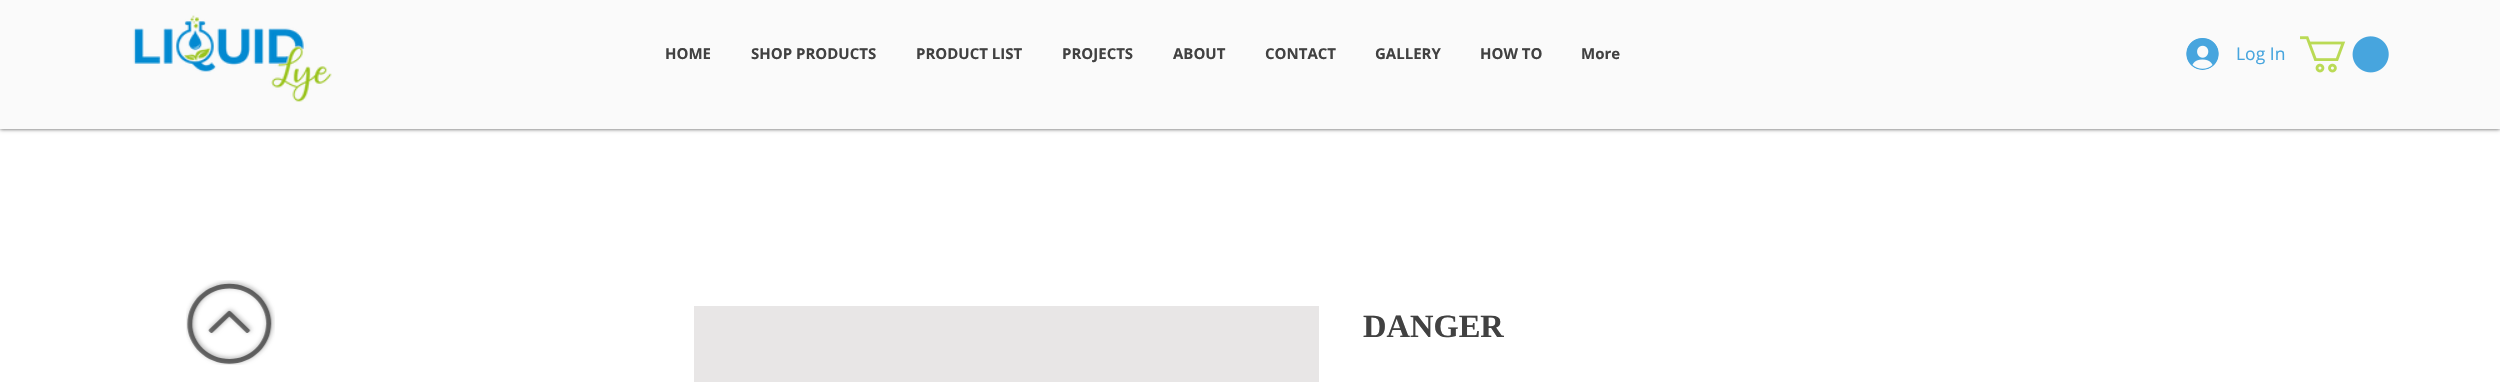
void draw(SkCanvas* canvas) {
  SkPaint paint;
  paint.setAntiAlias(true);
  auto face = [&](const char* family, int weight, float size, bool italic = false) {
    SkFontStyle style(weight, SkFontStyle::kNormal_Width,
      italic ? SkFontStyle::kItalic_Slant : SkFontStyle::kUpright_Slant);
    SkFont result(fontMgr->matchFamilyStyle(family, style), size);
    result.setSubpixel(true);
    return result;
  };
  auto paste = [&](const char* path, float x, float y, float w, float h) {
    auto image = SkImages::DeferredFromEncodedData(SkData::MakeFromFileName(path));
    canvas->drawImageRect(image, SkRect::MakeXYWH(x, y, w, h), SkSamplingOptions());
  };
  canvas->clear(0xffffffff);
  paint.setColor(0xb3000000);
  paint.setMaskFilter(SkMaskFilter::MakeBlur(kNormal_SkBlurStyle, 2));
  canvas->drawRect(SkRect::MakeXYWH(0, 0, 2500, 129), paint);
  paint.setMaskFilter(nullptr);
  paint.setColor(0xfffafafa);
  canvas->drawRect(SkRect::MakeXYWH(0, 0, 2500, 129), paint);
  paste("img/1.png", 133, 15, 199, 87);
  paste("img/2.png", 2186, 38, 33, 32);
  paste("img/3.png", 2300, 36, 89, 37);
  paste("img/4.png", 186, 280, 89, 85);
  paint.setColor(0xffe8e6e6);
  canvas->drawRect(SkRect::MakeXYWH(694, 306, 625, 76), paint);
  auto f0 = face("Open Sans", 700, 15);
  paint.setColor(0xff414141);
  {
    const struct { const char* s; float x, y; } items[] = {
      {"HOME", 665, 59},
      {"SHOP PRODUCTS", 751, 59},
      {"PRODUCT LIST", 916, 59},
      {"PROJECTS", 1062, 59},
      {"ABOUT", 1173, 59},
      {"CONTACT", 1265, 59},
      {"GALLERY", 1375, 59},
      {"HOW TO", 1480, 59},
      {"More", 1581, 59},
    };
    for (auto [s, x, y] : items) {
      canvas->drawString(s, x, y, f0, paint);
    }
  }
  auto f1 = face("Open Sans", 400, 17.5f);
  paint.setColor(0xff47a5de);
  canvas->drawString("Log In", 2236, 60, f1, paint);
  auto f2 = face("Liberation Serif", 700, 32.5f);
  paint.setColor(0xff414141);
  canvas->drawString("DANGER", 1363, 337, f2, paint);
}
